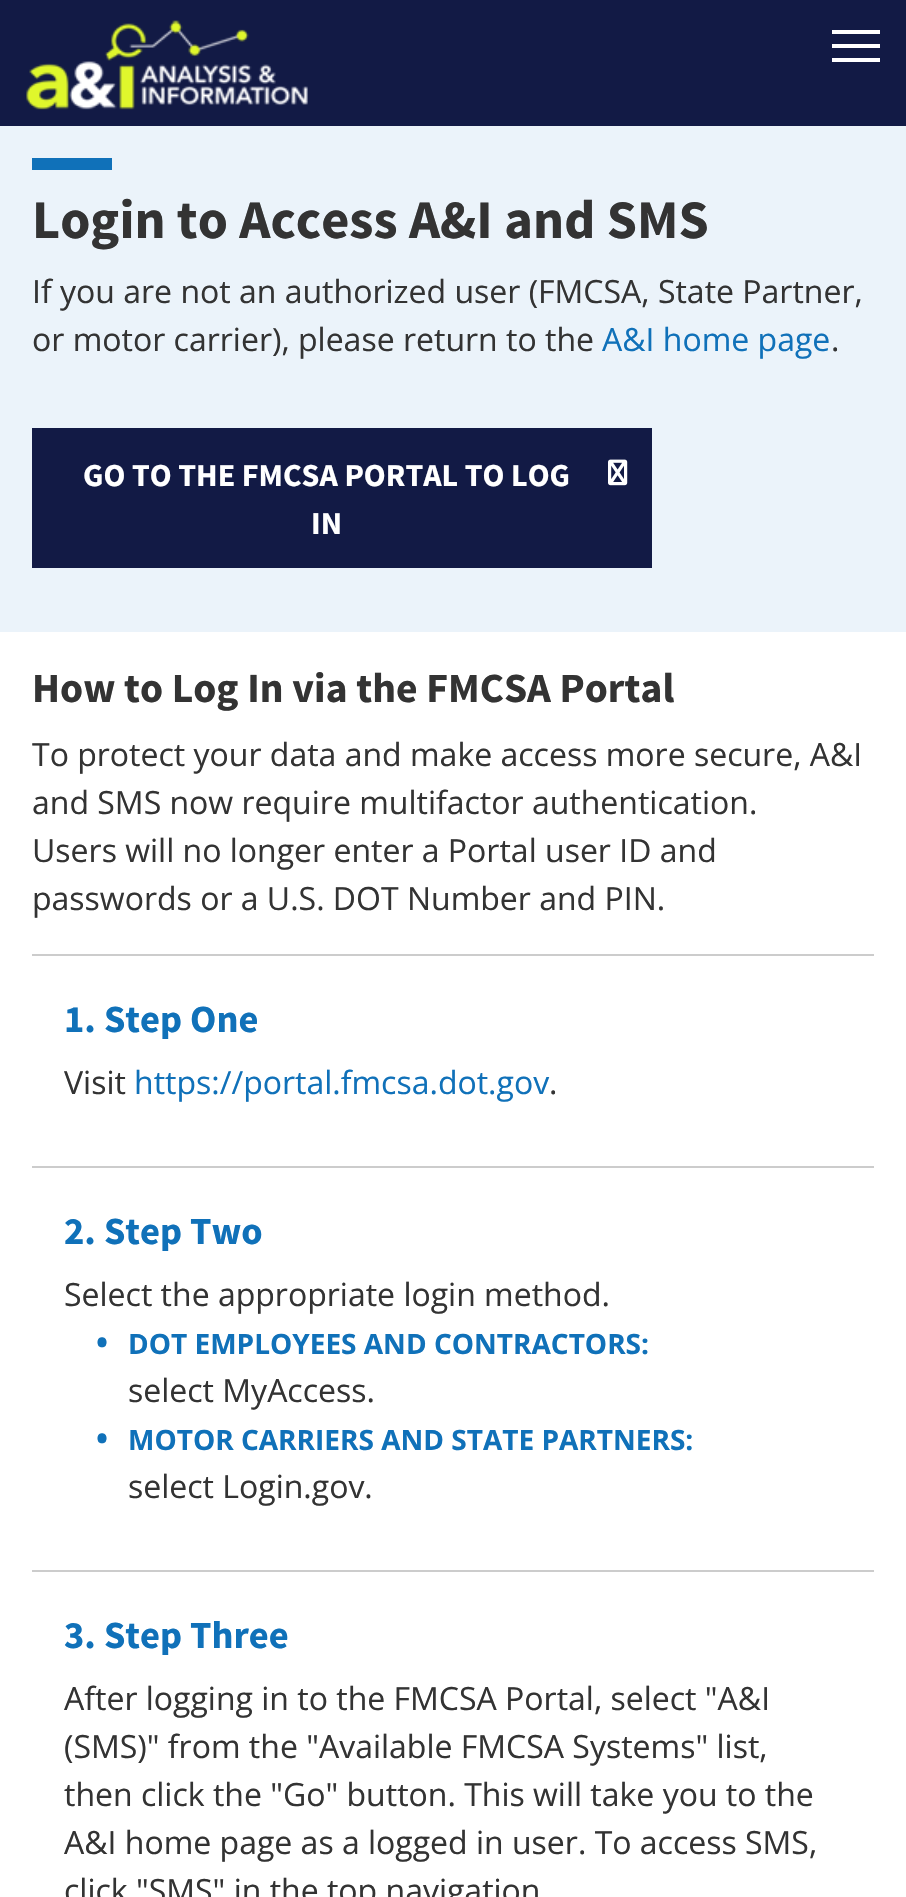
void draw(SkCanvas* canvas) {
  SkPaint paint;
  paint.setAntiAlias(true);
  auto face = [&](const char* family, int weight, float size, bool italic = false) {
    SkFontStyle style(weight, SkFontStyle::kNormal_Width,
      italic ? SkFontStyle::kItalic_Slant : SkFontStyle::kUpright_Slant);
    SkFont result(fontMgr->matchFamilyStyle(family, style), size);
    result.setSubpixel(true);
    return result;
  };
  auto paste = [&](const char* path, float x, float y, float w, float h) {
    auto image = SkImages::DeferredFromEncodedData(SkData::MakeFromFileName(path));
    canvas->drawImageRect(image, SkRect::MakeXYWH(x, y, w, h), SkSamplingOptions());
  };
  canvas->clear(0xffffffff);
  paint.setColor(0xff121a45);
  canvas->drawRect(SkRect::MakeXYWH(0, 0, 906, 126), paint);
  paste("img/1.png", 26, 20, 282, 90);
  {
    const struct { float x, y, w, h; SkColor color; } items[] = {
      {832, 44, 48, 4, 0xffffffff},
      {832, 30, 48, 4, 0xffffffff},
      {832, 58, 48, 4, 0xffffffff},
      {0, 126, 906, 506, 0xffebf3fa},
      {32, 158, 80, 12, 0xff1071b9},
      {32, 428, 620, 140, 0xff121a45},
    };
    for (auto [x, y, w, h, color] : items) {
      paint.setColor(color);
      canvas->drawRect(SkRect::MakeXYWH(x, y, w, h), paint);
    }
  }
  paste("img/2.png", 608, 459, 20, 27);
  {
    const struct { float x, y, w, h; SkColor color; } items[] = {
      {32, 954, 842, 2, 0xffcccccc},
      {32, 1166, 842, 2, 0xffcccccc},
      {32, 1570, 842, 2, 0xffcccccc},
    };
    for (auto [x, y, w, h, color] : items) {
      paint.setColor(color);
      canvas->drawRect(SkRect::MakeXYWH(x, y, w, h), paint);
    }
  }
  auto f0 = face("Source Sans Pro", 700, 54.4f);
  paint.setColor(0xff333333);
  canvas->drawString("Login to Access A&I and SMS", 32, 238, f0, paint);
  auto f1 = face("Open Sans", 400, 32);
  canvas->drawString("If you are not an authorized user (FMCSA, State Partner,", 32, 303, f1, paint);
  canvas->drawString("or motor carrier), please return to the", 32, 351, f1, paint);
  paint.setColor(0xff1071b9);
  canvas->drawString("A&I home page", 602, 351, f1, paint);
  paint.setColor(0xff333333);
  canvas->drawString(".", 831, 351, f1, paint);
  auto f2 = face("Source Sans Pro", 700, 32);
  paint.setColor(0xffffffff);
  canvas->drawString("GO TO THE FMCSA PORTAL TO LOG", 83, 486, f2, paint);
  canvas->drawString("IN", 311, 534, f2, paint);
  auto f3 = face("Source Sans Pro", 700, 41.6f);
  paint.setColor(0xff333333);
  canvas->drawString("How to Log In via the FMCSA Portal", 32, 702, f3, paint);
  {
    const struct { const char* s; float x, y; } items[] = {
      {"To protect your data and make access more secure, A&I", 32, 766},
      {"and SMS now require multifactor authentication.", 32, 814},
      {"Users will no longer enter a Portal user ID and", 32, 862},
      {"passwords or a U.S. DOT Number and PIN.", 32, 910},
    };
    for (auto [s, x, y] : items) {
      canvas->drawString(s, x, y, f1, paint);
    }
  }
  auto f4 = face("Source Sans Pro", 700, 38.5f);
  paint.setColor(0xff1071b9);
  canvas->drawString("1. Step One", 64, 1032, f4, paint);
  paint.setColor(0xff333333);
  canvas->drawString("Visit", 64, 1094, f1, paint);
  paint.setColor(0xff1071b9);
  canvas->drawString("https://portal.fmcsa.dot.gov", 134, 1094, f1, paint);
  paint.setColor(0xff333333);
  canvas->drawString(".", 549, 1094, f1, paint);
  paint.setColor(0xff1071b9);
  canvas->drawString("2. Step Two", 64, 1244, f4, paint);
  paint.setColor(0xff333333);
  canvas->drawString("Select the appropriate login method.", 64, 1306, f1, paint);
  auto f5 = face("Open Sans", 700, 32);
  paint.setColor(0xff1071b9);
  canvas->drawString("•", 96, 1354, f5, paint);
  auto f6 = face("Open Sans", 700, 28);
  canvas->drawString("DOT EMPLOYEES AND CONTRACTORS:", 128, 1354, f6, paint);
  paint.setColor(0xff333333);
  canvas->drawString("select MyAccess.", 128, 1402, f1, paint);
  paint.setColor(0xff1071b9);
  canvas->drawString("•", 96, 1450, f5, paint);
  canvas->drawString("MOTOR CARRIERS AND STATE PARTNERS:", 128, 1450, f6, paint);
  paint.setColor(0xff333333);
  canvas->drawString("select Login.gov.", 128, 1498, f1, paint);
  paint.setColor(0xff1071b9);
  canvas->drawString("3. Step Three", 64, 1648, f4, paint);
  paint.setColor(0xff333333);
  {
    const struct { const char* s; float x, y; } items[] = {
      {"After logging in to the FMCSA Portal, select \"A&I", 64, 1710},
      {"(SMS)\" from the \"Available FMCSA Systems\" list,", 64, 1758},
      {"then click the \"Go\" button. This will take you to the", 64, 1806},
      {"A&I home page as a logged in user. To access SMS,", 64, 1854},
      {"click \"SMS\" in the top navigation", 64, 1902},
    };
    for (auto [s, x, y] : items) {
      canvas->drawString(s, x, y, f1, paint);
    }
  }
}
